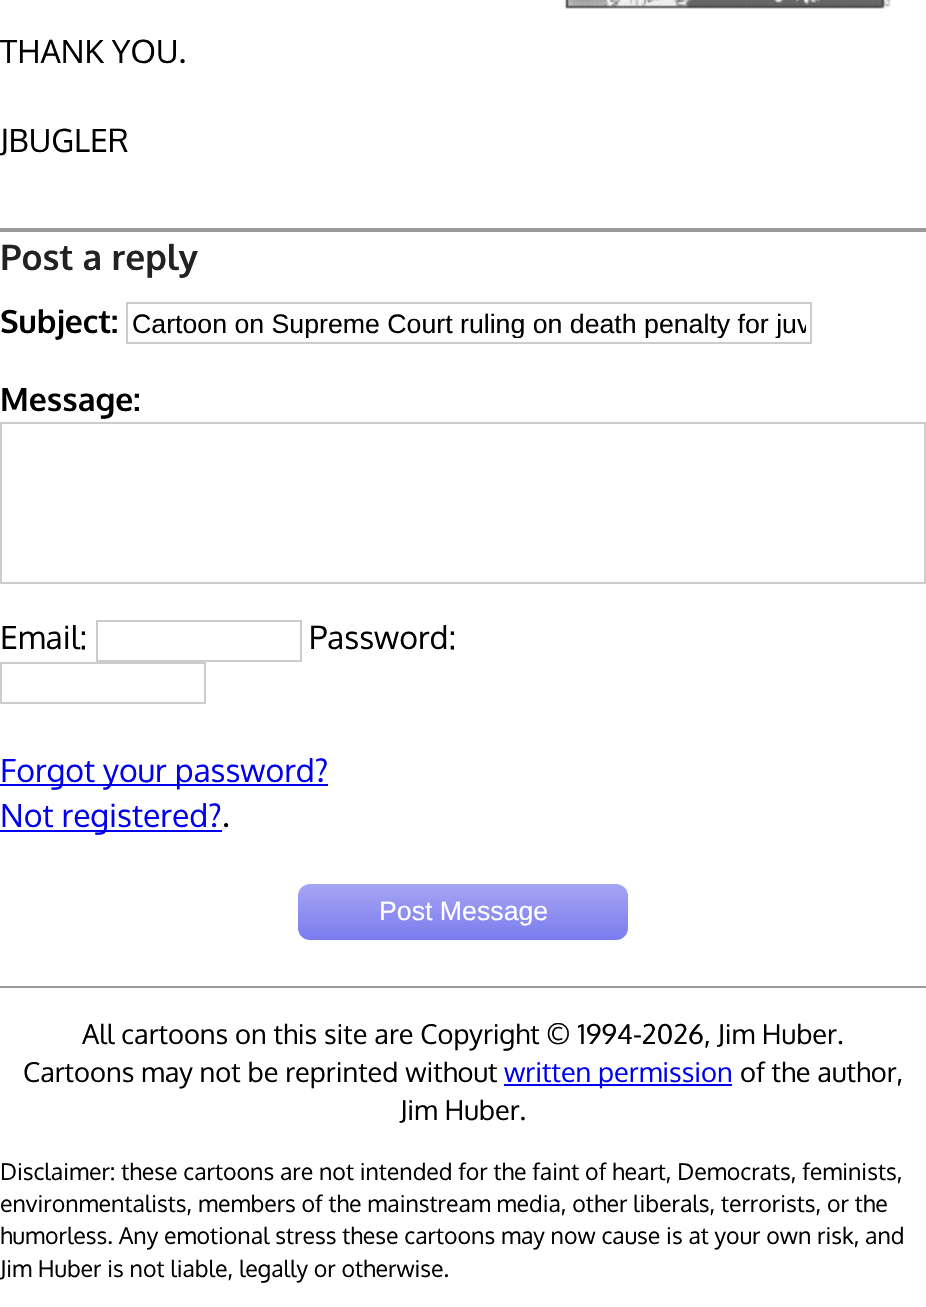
void draw(SkCanvas* canvas) {
  SkPaint paint;
  paint.setAntiAlias(true);
  auto face = [&](const char* family, int weight, float size, bool italic = false) {
    SkFontStyle style(weight, SkFontStyle::kNormal_Width,
      italic ? SkFontStyle::kItalic_Slant : SkFontStyle::kUpright_Slant);
    SkFont result(fontMgr->matchFamilyStyle(family, style), size);
    result.setSubpixel(true);
    return result;
  };
  auto paste = [&](const char* path, float x, float y, float w, float h) {
    auto image = SkImages::DeferredFromEncodedData(SkData::MakeFromFileName(path));
    canvas->drawImageRect(image, SkRect::MakeXYWH(x, y, w, h), SkSamplingOptions());
  };
  canvas->clear(0xffffffff);
  paste("img/1.png", 563, 0, 328, 9);
  paint.setColor(0xff999999);
  canvas->drawRect(SkRect::MakeXYWH(0, 228, 926, 4), paint);
  paint.setStroke(true);
  paint.setStrokeWidth(2);
  paint.setColor(0xffcccccc);
  canvas->drawRect(SkRect::MakeXYWH(127, 303, 684, 40), paint);
  canvas->drawRect(SkRect::MakeXYWH(1, 423, 924, 160), paint);
  canvas->drawRect(SkRect::MakeXYWH(97, 621, 204, 40), paint);
  canvas->drawRect(SkRect::MakeXYWH(1, 663, 204, 40), paint);
  paint.setStroke(false);
  paint.setColor(0xff0000ee);
  canvas->drawRect(SkRect::MakeXYWH(0, 784, 328, 2), paint);
  canvas->drawRect(SkRect::MakeXYWH(0, 830, 222, 2), paint);
  {
    const SkColor colors[] = {0xffa5a5f4, 0xff7b7bee};
    const float stops[] = {0, 1};
    const SkPoint ends[] = {{463, 884}, {463, 940}};
    paint.setShader(SkGradientShader::MakeLinear(ends, colors, stops, 2, SkTileMode::kClamp));
    paint.setAlpha(255);
  }
  canvas->drawRoundRect(SkRect::MakeXYWH(298, 884, 330, 56), 12, 12, paint);
  paint.setShader(nullptr);
  paint.setColor(0xff999999);
  canvas->drawRect(SkRect::MakeXYWH(0, 986, 926, 2), paint);
  paint.setColor(0xff0000ee);
  canvas->drawRect(SkRect::MakeXYWH(504, 1084, 228, 2), paint);
  auto f0 = face("Oxygen", 400, 32);
  paint.setColor(0xff000000);
  canvas->drawString("THANK YOU.", 0, 63, f0, paint);
  canvas->drawString("JBUGLER", 0, 152, f0, paint);
  auto f1 = face("Oxygen", 700, 35.25f);
  paint.setColor(0xff222222);
  canvas->drawString("Post a reply", 0, 270, f1, paint);
  auto f2 = face("Oxygen", 700, 32);
  paint.setColor(0xff000000);
  canvas->drawString("Subject:", 0, 333, f2, paint);
  canvas->save();
  canvas->clipRect(SkRect::MakeXYWH(132, 308, 674, 30));
  auto f3 = face("Liberation Sans", 400, 26.7f);
  canvas->drawString("Cartoon on Supreme Court ruling on death penalty for juv", 132, 333, f3, paint);
  canvas->restore();
  canvas->drawString("Message:", 0, 411, f2, paint);
  canvas->drawString("Email:", 0, 649, f0, paint);
  canvas->drawString("Password:", 309, 649, f0, paint);
  paint.setColor(0xff0000ee);
  canvas->drawString("Forgot your password?", 0, 782, f0, paint);
  canvas->drawString("Not registered?", 0, 827, f0, paint);
  paint.setColor(0xff000000);
  canvas->drawString(".", 222, 827, f0, paint);
  paint.setColor(0xffffffff);
  canvas->drawString("Post Message", 379, 920, f3, paint);
  auto f4 = face("Oxygen", 400, 27.2f);
  paint.setColor(0xff000000);
  canvas->drawString("All cartoons on this site are Copyright © 1994-2026, Jim Huber.", 82, 1044, f4, paint);
  canvas->drawString("Cartoons may not be reprinted without", 23, 1082, f4, paint);
  paint.setColor(0xff0000ee);
  canvas->drawString("written permission", 504, 1082, f4, paint);
  paint.setColor(0xff000000);
  canvas->drawString("of the author,", 740, 1082, f4, paint);
  canvas->drawString("Jim Huber.", 400, 1120, f4, paint);
  auto f5 = face("Oxygen", 400, 23.1f);
  {
    const struct { const char* s; float x, y; } items[] = {
      {"Disclaimer: these cartoons are not intended for the faint of heart, Democrats, feminists,", 0, 1180},
      {"environmentalists, members of the mainstream media, other liberals, terrorists, or the", 0, 1212},
      {"humorless. Any emotional stress these cartoons may now cause is at your own risk, and", 0, 1244},
      {"Jim Huber is not liable, legally or otherwise.", 0, 1277},
    };
    for (auto [s, x, y] : items) {
      canvas->drawString(s, x, y, f5, paint);
    }
  }
}
